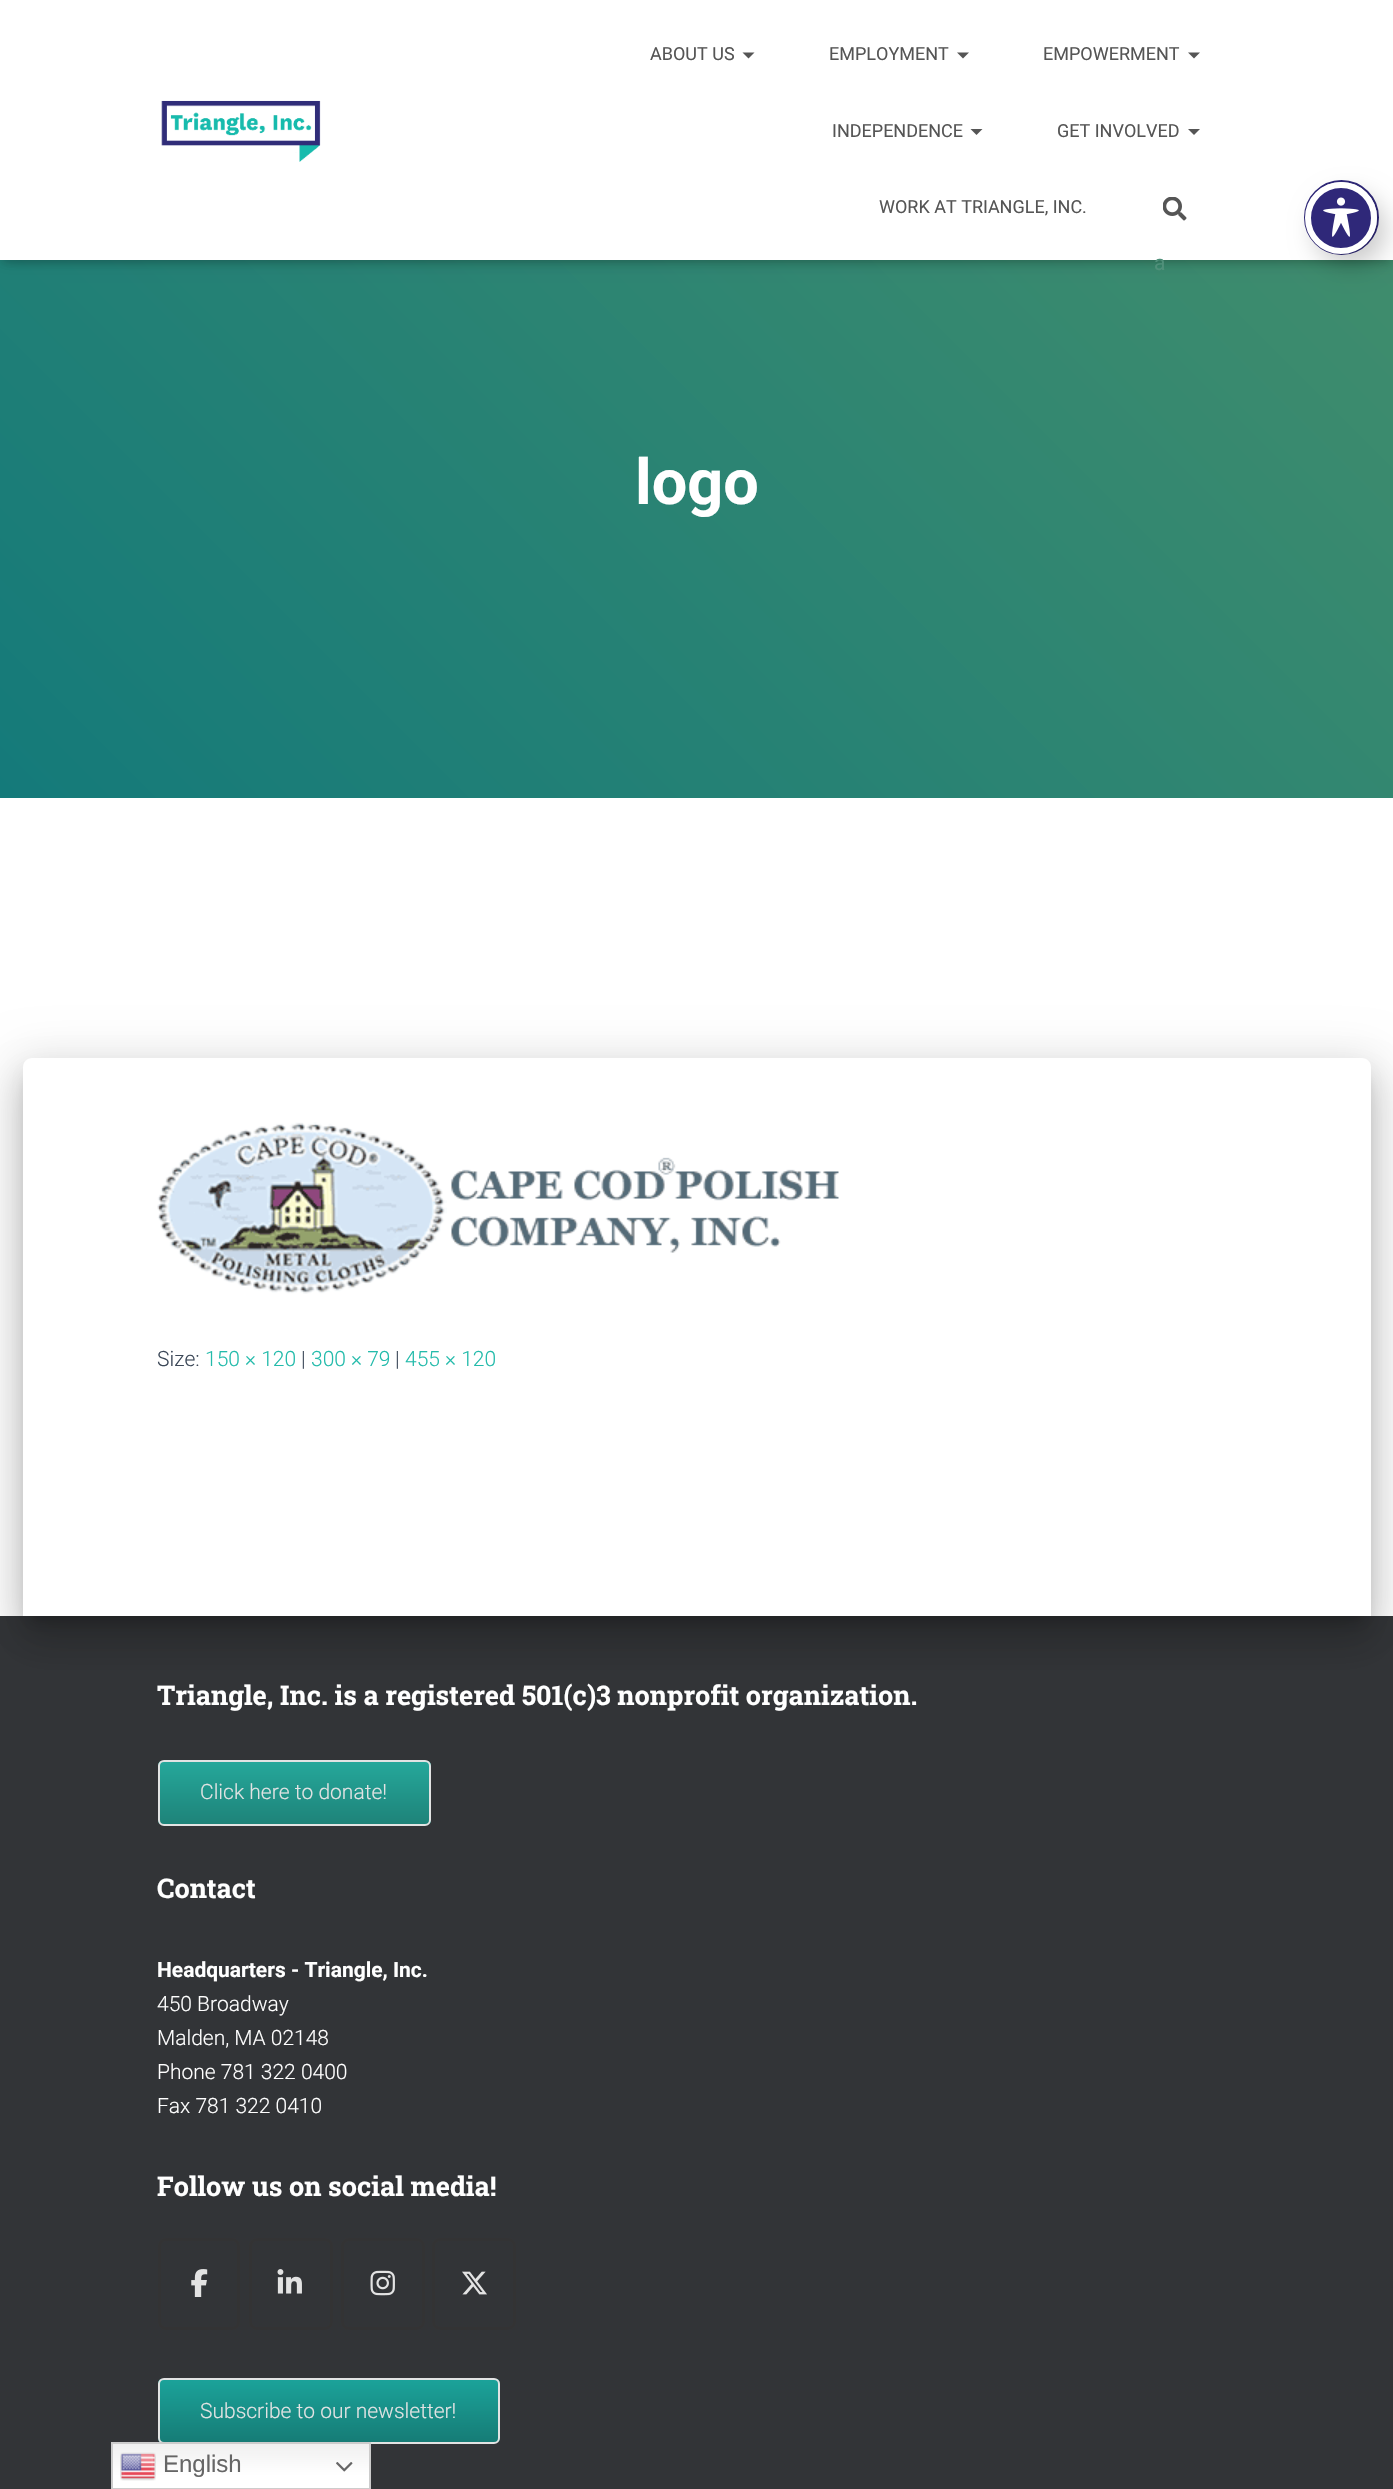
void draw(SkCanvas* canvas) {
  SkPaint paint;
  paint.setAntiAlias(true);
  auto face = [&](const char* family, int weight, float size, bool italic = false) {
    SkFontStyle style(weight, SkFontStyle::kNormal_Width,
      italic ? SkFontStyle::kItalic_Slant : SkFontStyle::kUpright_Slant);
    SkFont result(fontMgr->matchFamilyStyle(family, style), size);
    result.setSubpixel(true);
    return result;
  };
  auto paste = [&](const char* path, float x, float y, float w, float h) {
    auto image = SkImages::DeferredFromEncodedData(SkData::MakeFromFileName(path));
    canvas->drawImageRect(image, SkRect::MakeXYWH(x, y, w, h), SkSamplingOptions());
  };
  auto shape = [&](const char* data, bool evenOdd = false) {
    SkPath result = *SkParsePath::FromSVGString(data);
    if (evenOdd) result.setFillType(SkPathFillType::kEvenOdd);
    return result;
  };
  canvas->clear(0xffffffff);
  {
    const SkColor colors[] = {0xff147a7a, 0xff458f6b};
    const float stops[] = {0, 1};
    const SkPoint ends[] = {{149, 947}, {1245, -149}};
    paint.setShader(SkGradientShader::MakeLinear(ends, colors, stops, 2, SkTileMode::kClamp));
    paint.setAlpha(255);
  }
  canvas->drawRect(SkRect::MakeXYWH(0, 260, 1393, 538), paint);
  paint.setShader(nullptr);
  paint.setColor(0x1a000000);
  paint.setMaskFilter(SkMaskFilter::MakeBlur(kNormal_SkBlurStyle, 4));
  canvas->drawRect(SkRect::MakeXYWH(3, 9, 1388, 254), paint);
  paint.setMaskFilter(nullptr);
  paint.setColor(0x1f000000);
  paint.setMaskFilter(SkMaskFilter::MakeBlur(kNormal_SkBlurStyle, 7.5f));
  canvas->drawRect(SkRect::MakeXYWH(0, 2, 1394, 259), paint);
  paint.setMaskFilter(nullptr);
  paint.setColor(0x6b000000);
  paint.setMaskFilter(SkMaskFilter::MakeBlur(kNormal_SkBlurStyle, 7.5f));
  canvas->drawRect(SkRect::MakeXYWH(9, 11, 1376, 241), paint);
  paint.setMaskFilter(nullptr);
  paint.setColor(0xffffffff);
  canvas->drawRect(SkRect::MakeXYWH(0, 0, 1393, 260), paint);
  paste("img/1.png", 161, 100, 160, 62);
  paint.setColor(0xff555555);
  canvas->drawPath(shape("M742.5 52.5H754.5L748.5 58.5Z"), paint);
  canvas->drawPath(shape("M957 52.5H969L963 58.5Z"), paint);
  canvas->drawPath(shape("M1188 52.5H1200L1194 58.5Z"), paint);
  canvas->drawPath(shape("M970.5 129H982.5L976.5 135Z"), paint);
  canvas->drawPath(shape("M1188 129H1200L1194 135Z"), paint);
  paste("img/2.png", 1163, 197, 24, 24);
  paint.setColor(0xff323437);
  canvas->drawRect(SkRect::MakeXYWH(0, 1616, 1393, 873), paint);
  paint.setColor(0x33000000);
  paint.setMaskFilter(SkMaskFilter::MakeBlur(kNormal_SkBlurStyle, 7.5f));
  canvas->drawRoundRect(SkRect::MakeXYWH(30, 1077, 1334, 543), 1.5f, 1.5f, paint);
  paint.setMaskFilter(nullptr);
  paint.setColor(0x1f000000);
  paint.setMaskFilter(SkMaskFilter::MakeBlur(kNormal_SkBlurStyle, 22.5f));
  canvas->drawRoundRect(SkRect::MakeXYWH(15, 1059, 1364, 573), 17, 17, paint);
  paint.setMaskFilter(nullptr);
  paint.setColor(0x24000000);
  paint.setMaskFilter(SkMaskFilter::MakeBlur(kNormal_SkBlurStyle, 18));
  canvas->drawRoundRect(SkRect::MakeXYWH(20, 1079, 1354, 564), 12, 12, paint);
  paint.setMaskFilter(nullptr);
  paint.setColor(0xffffffff);
  canvas->drawPath(shape("M32 1058H1362C1367 1058 1371 1062 1371 1067V1616H23V1067C23 1062 27 1058 32 1058Z"), paint);
  paste("img/3.png", 157, 1122, 682, 172);
  canvas->save();
  canvas->clipPath(shape("M164 1760H425C428.5 1760 431 1762.5 431 1766V1820C431 1823.5 428.5 1826 425 1826H164C160.5 1826 158 1823.5 158 1820V1766C158 1762.5 160.5 1760 164 1760Z"), true);
  {
    const SkColor colors[] = {0xff1e8379, 0xff25a89b};
    const float stops[] = {0, 1};
    const SkPoint ends[] = {{159, 1824}, {159, 1761}};
    paint.setShader(SkGradientShader::MakeLinear(ends, colors, stops, 2, SkTileMode::kClamp));
    paint.setAlpha(255);
  }
  canvas->drawRect(SkRect::MakeXYWH(158, 1761, 273, 63), paint);
  canvas->restore();
  paint.setStroke(true);
  paint.setStrokeWidth(2);
  paint.setShader(nullptr);
  paint.setColor(0xffe2e3e3);
  canvas->drawRoundRect(SkRect::MakeXYWH(159, 1761, 271, 64), 5, 5, paint);
  paint.setStrokeWidth(3);
  paint.setColor(0xff333334);
  canvas->drawRoundRect(SkRect::MakeXYWH(159.5f, 2239.5f, 79, 89), 6.5f, 6.5f, paint);
  paste("img/4.png", 191, 2269, 17, 28);
  canvas->drawRoundRect(SkRect::MakeXYWH(250.5f, 2239.5f, 81, 89), 6.5f, 6.5f, paint);
  paste("img/5.png", 277, 2269, 25, 25);
  canvas->drawRoundRect(SkRect::MakeXYWH(342.5f, 2239.5f, 81, 89), 6.5f, 6.5f, paint);
  paste("img/6.png", 370, 2270, 25, 26);
  canvas->drawRoundRect(SkRect::MakeXYWH(433.5f, 2239.5f, 81, 89), 6.5f, 6.5f, paint);
  paste("img/7.png", 462, 2271, 25, 24);
  canvas->save();
  canvas->clipPath(shape("M164 2378H494C497.5 2378 500 2380.5 500 2384V2438C500 2441.5 497.5 2444 494 2444H164C160.5 2444 158 2441.5 158 2438V2384C158 2380.5 160.5 2378 164 2378Z"), true);
  paint.setStroke(false);
  {
    const SkColor colors[] = {0xff167c76, 0xff1ba39a};
    const float stops[] = {0, 1};
    const SkPoint ends[] = {{159, 2442}, {159, 2379}};
    paint.setShader(SkGradientShader::MakeLinear(ends, colors, stops, 2, SkTileMode::kClamp));
    paint.setAlpha(255);
  }
  canvas->drawRect(SkRect::MakeXYWH(158, 2379, 342, 63), paint);
  canvas->restore();
  paint.setStroke(true);
  paint.setStrokeWidth(2);
  paint.setShader(nullptr);
  paint.setColor(0xffe2e3e3);
  canvas->drawRoundRect(SkRect::MakeXYWH(159, 2379, 340, 64), 5, 5, paint);
  paint.setColor(0xff2f2879);
  canvas->drawCircle(1341.5f, 217.5f, 36.5f, paint);
  paint.setStroke(false);
  paint.setColor(0x33000000);
  paint.setMaskFilter(SkMaskFilter::MakeBlur(kNormal_SkBlurStyle, 12));
  canvas->drawRoundRect(SkRect::MakeXYWH(1314, 194, 72, 72), 36, 36, paint);
  paint.setMaskFilter(nullptr);
  paint.setColor(0xff2f2879);
  canvas->drawCircle(1341, 218, 33, paint);
  paint.setStroke(true);
  paint.setStrokeWidth(6);
  paint.setColor(0xffffffff);
  canvas->drawCircle(1341, 218, 33, paint);
  paste("img/8.png", 1323, 197, 36, 40);
  paint.setStroke(false);
  {
    const SkColor colors[] = {0xffefefef, 0xffffffff};
    const float stops[] = {0, 0.7f};
    const SkPoint ends[] = {{241, 2442}, {241, 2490}};
    paint.setShader(SkGradientShader::MakeLinear(ends, colors, stops, 2, SkTileMode::kClamp));
    paint.setAlpha(255);
  }
  canvas->drawRect(SkRect::MakeXYWH(113, 2444, 256, 44), paint);
  paint.setStroke(true);
  paint.setStrokeWidth(2);
  paint.setShader(nullptr);
  paint.setColor(0xffcccccc);
  canvas->drawRect(SkRect::MakeXYWH(112, 2443, 258, 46), paint);
  paste("img/9.png", 120, 2452, 36, 29);
  paste("img/10.png", 336, 2462, 17, 10);
  auto f0 = face("Roboto", 400, 18);
  paint.setStroke(false);
  paint.setColor(0xff555555);
  {
    const struct { const char* s; float x, y; } items[] = {
      {"ABOUT US", 650, 60},
      {"EMPLOYMENT", 829, 60},
      {"EMPOWERMENT", 1043, 60},
      {"INDEPENDENCE", 832, 137},
      {"GET INVOLVED", 1057, 137},
      {"WORK AT TRIANGLE, INC.", 879, 213},
    };
    for (auto [s, x, y] : items) {
      canvas->drawString(s, x, y, f0, paint);
    }
  }
  auto f1 = face("Roboto", 400, 21);
  paint.setColor(0xff50907a);
  canvas->drawString("a", 1154, 270, f1, paint);
  auto f2 = face("Roboto", 700, 63);
  paint.setColor(0xffffffff);
  canvas->drawString("logo", 635, 504, f2, paint);
  auto f3 = face("Roboto", 300, 21);
  paint.setColor(0xff3c4858);
  canvas->drawString("Size:", 157, 1366, f3, paint);
  paint.setColor(0xff23bbab);
  canvas->drawString("150 × 120", 205, 1366, f3, paint);
  paint.setColor(0xff3c4858);
  canvas->drawString("|", 301, 1366, f3, paint);
  paint.setColor(0xff23bbab);
  canvas->drawString("300 × 79", 311, 1366, f3, paint);
  paint.setColor(0xff3c4858);
  canvas->drawString("|", 395, 1366, f3, paint);
  paint.setColor(0xff23bbab);
  canvas->drawString("455 × 120", 405, 1366, f3, paint);
  auto f4 = face("Roboto Slab", 700, 27);
  paint.setColor(0xffffffff);
  canvas->drawString("Triangle, Inc. is a registered 501(c)3 nonprofit organization.", 157, 1705, f4, paint);
  paint.setColor(0xffe2e3e3);
  canvas->drawString("Click here to donate!", 200, 1799, f3, paint);
  paint.setColor(0xffffffff);
  canvas->drawString("Contact", 157, 1898, f4, paint);
  auto f5 = face("Roboto", 700, 21);
  canvas->drawString("Headquarters - Triangle, Inc.", 157, 1977, f5, paint);
  {
    const struct { const char* s; float x, y; } items[] = {
      {"450 Broadway", 157, 2011},
      {"Malden, MA 02148", 157, 2045},
      {"Phone 781 322 0400", 157, 2079},
      {"Fax 781 322 0410", 157, 2113},
    };
    for (auto [s, x, y] : items) {
      canvas->drawString(s, x, y, f3, paint);
    }
  }
  canvas->drawString("Follow us on social media!", 157, 2196, f4, paint);
  paint.setColor(0xffe2e3e3);
  canvas->drawString("Subscribe to our newsletter!", 200, 2418, f3, paint);
  auto f6 = face("Liberation Sans", 400, 24);
  paint.setColor(0xff666666);
  canvas->drawString("English", 163, 2472, f6, paint);
}
